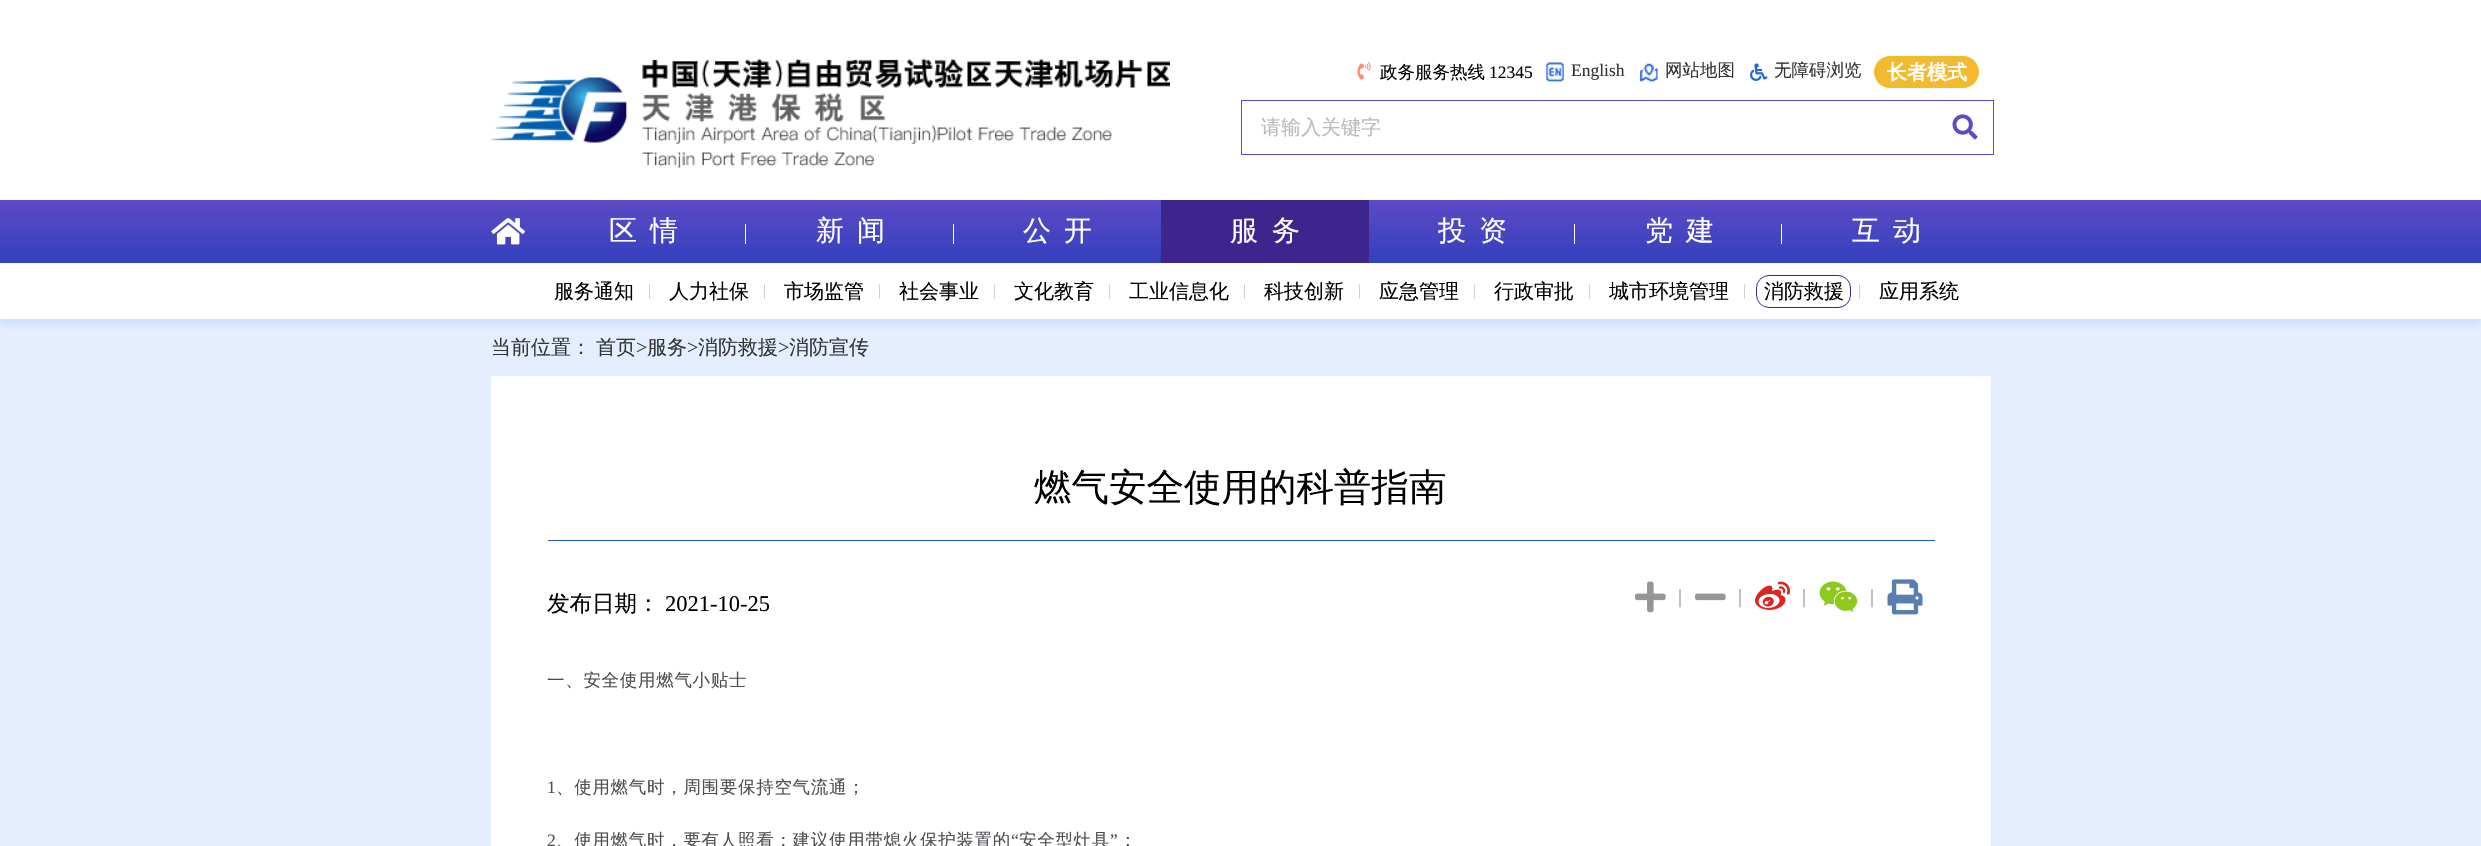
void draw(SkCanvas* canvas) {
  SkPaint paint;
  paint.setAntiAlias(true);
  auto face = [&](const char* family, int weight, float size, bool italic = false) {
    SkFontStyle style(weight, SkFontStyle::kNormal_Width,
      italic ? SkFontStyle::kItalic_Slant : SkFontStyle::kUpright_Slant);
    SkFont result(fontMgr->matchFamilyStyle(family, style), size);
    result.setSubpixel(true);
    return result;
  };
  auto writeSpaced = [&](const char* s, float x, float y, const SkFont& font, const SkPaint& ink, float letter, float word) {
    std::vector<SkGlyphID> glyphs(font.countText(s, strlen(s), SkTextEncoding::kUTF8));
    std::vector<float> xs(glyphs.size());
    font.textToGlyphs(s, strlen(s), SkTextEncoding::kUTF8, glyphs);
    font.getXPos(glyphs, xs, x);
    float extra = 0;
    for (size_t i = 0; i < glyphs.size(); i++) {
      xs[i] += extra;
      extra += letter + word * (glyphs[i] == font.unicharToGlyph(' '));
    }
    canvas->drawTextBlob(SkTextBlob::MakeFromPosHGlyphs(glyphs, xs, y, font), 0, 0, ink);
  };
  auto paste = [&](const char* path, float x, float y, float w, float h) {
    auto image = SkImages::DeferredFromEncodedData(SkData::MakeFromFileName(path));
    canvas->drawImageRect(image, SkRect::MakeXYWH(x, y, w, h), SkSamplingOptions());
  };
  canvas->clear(0xffe4eeff);
  paint.setColor(0xffffffff);
  canvas->drawRect(SkRect::MakeXYWH(0, 0, 2481, 200), paint);
  paste("img/1.png", 491, 58, 679, 110);
  paste("img/2.png", 1357, 62, 14, 18);
  paste("img/3.png", 1546, 62, 18, 20);
  paste("img/4.png", 1639, 63, 19, 19);
  paste("img/5.png", 1750, 63, 18, 18);
  paint.setColor(0xfff4ba2f);
  canvas->drawRoundRect(SkRect::MakeXYWH(1874, 56, 105, 32), 16, 16, paint);
  paint.setStroke(true);
  paint.setStrokeWidth(1);
  paint.setColor(0xff5e4ac6);
  canvas->drawRect(SkRect::MakeXYWH(1241.5f, 100.5f, 752, 54), paint);
  paste("img/6.png", 1952, 114, 26, 26);
  paint.setStroke(false);
  paint.setColor(0xffccdeff);
  paint.setMaskFilter(SkMaskFilter::MakeBlur(kNormal_SkBlurStyle, 4));
  canvas->drawRect(SkRect::MakeXYWH(0, 268, 2481, 56), paint);
  paint.setMaskFilter(nullptr);
  {
    const SkColor colors[] = {0xff5e4ac6, 0xff3340bd};
    const float stops[] = {0, 1};
    const SkPoint ends[] = {{1241, 200}, {1241, 263}};
    paint.setShader(SkGradientShader::MakeLinear(ends, colors, stops, 2, SkTileMode::kClamp));
    paint.setAlpha(255);
  }
  canvas->drawRect(SkRect::MakeXYWH(0, 200, 2481, 63), paint);
  paste("img/7.png", 491, 218, 34, 27);
  paint.setShader(nullptr);
  {
    const struct { float x, y, w, h; SkColor color; } items[] = {
      {953, 224, 1, 20, 0xffffffff},
      {1161, 200, 208, 63, 0xff3e258e},
      {0, 263, 2481, 56, 0xffffffff},
      {649, 284, 1, 15, 0xffd2d2d2},
      {764, 284, 1, 15, 0xffd2d2d2},
      {879, 284, 1, 15, 0xffd2d2d2},
      {994, 284, 1, 15, 0xffd2d2d2},
      {1109, 284, 1, 15, 0xffd2d2d2},
      {1244, 284, 1, 15, 0xffd2d2d2},
      {1359, 284, 1, 15, 0xffd2d2d2},
      {1474, 284, 1, 15, 0xffd2d2d2},
      {1589, 284, 1, 15, 0xffd2d2d2},
      {1744, 284, 1, 15, 0xffd2d2d2},
    };
    for (auto [x, y, w, h, color] : items) {
      paint.setColor(color);
      canvas->drawRect(SkRect::MakeXYWH(x, y, w, h), paint);
    }
  }
  paint.setStroke(true);
  paint.setColor(0xff3e258e);
  canvas->drawRoundRect(SkRect::MakeXYWH(1756.5f, 275.5f, 94, 32), 12.5f, 12.5f, paint);
  paint.setStroke(false);
  {
    const struct { float x, y, w, h; SkColor color; } items[] = {
      {1859, 284, 1, 15, 0xffd2d2d2},
      {745, 224, 1, 20, 0xffffffff},
      {1574, 224, 1, 20, 0xffffffff},
      {1781, 224, 1, 20, 0xffffffff},
      {491, 376, 1500, 470, 0xffffffff},
      {548, 540, 1387, 1, 0xff2060b7},
    };
    for (auto [x, y, w, h, color] : items) {
      paint.setColor(color);
      canvas->drawRect(SkRect::MakeXYWH(x, y, w, h), paint);
    }
  }
  paste("img/8.png", 1635, 581, 31, 32);
  paste("img/9.png", 1695, 593, 31, 8);
  paste("img/10.png", 1755, 581, 35, 29);
  paste("img/11.png", 1819, 581, 39, 32);
  paste("img/12.png", 1887, 579, 36, 36);
  auto f0 = face("WenQuanYi Zen Hei", 500, 17.5f);
  paint.setColor(0xff000000);
  canvas->drawString("政务服务热线", 1380, 78, f0, paint);
  auto f1 = face("Liberation Serif", 400, 17.5f);
  canvas->drawString("12345", 1489, 78, f1, paint);
  paint.setColor(0xff333333);
  canvas->drawString("English", 1571, 76, f1, paint);
  canvas->drawString("网站地图", 1665, 76, f0, paint);
  canvas->drawString("无障碍浏览", 1774, 76, f0, paint);
  auto f2 = face("WenQuanYi Zen Hei", 700, 20);
  paint.setColor(0xffffffff);
  canvas->drawString("长者模式", 1887, 79, f2, paint);
  auto f3 = face("WenQuanYi Zen Hei", 500, 20);
  paint.setColor(0xffbababa);
  canvas->drawString("请输入关键字", 1261, 134, f3, paint);
  auto f4 = face("WenQuanYi Zen Hei", 500, 28);
  paint.setColor(0xffffffff);
  {
    const struct { const char* s; float x, y; } items[] = {
      {"新", 816, 240},
      {"闻", 857, 240},
      {"服", 1230, 240},
      {"务", 1272, 240},
    };
    for (auto [s, x, y] : items) {
      canvas->drawString(s, x, y, f4, paint);
    }
  }
  paint.setColor(0xff000000);
  {
    const struct { const char* s; float x, y; } items[] = {
      {"服务通知", 554, 298},
      {"人力社保", 669, 298},
      {"市场监管", 784, 298},
      {"社会事业", 899, 298},
      {"文化教育", 1014, 298},
      {"工业信息化", 1129, 298},
      {"科技创新", 1264, 298},
      {"应急管理", 1379, 298},
      {"行政审批", 1494, 298},
      {"城市环境管理", 1609, 298},
      {"消防救援", 1764, 298},
      {"应用系统", 1879, 298},
    };
    for (auto [s, x, y] : items) {
      canvas->drawString(s, x, y, f3, paint);
    }
  }
  paint.setColor(0xffffffff);
  {
    const struct { const char* s; float x, y; } items[] = {
      {"区", 609, 240},
      {"情", 650, 240},
      {"公", 1023, 240},
      {"开", 1064, 240},
      {"投", 1438, 240},
      {"资", 1479, 240},
      {"党", 1645, 240},
      {"建", 1686, 240},
      {"互", 1852, 240},
      {"动", 1893, 240},
    };
    for (auto [s, x, y] : items) {
      canvas->drawString(s, x, y, f4, paint);
    }
  }
  paint.setColor(0xff333333);
  canvas->drawString("当前位置：", 491, 354, f3, paint);
  canvas->drawString("首页", 596, 354, f3, paint);
  auto f5 = face("Liberation Serif", 400, 20);
  canvas->drawString(">", 636, 354, f5, paint);
  canvas->drawString("服务", 647, 354, f3, paint);
  canvas->drawString(">", 687, 354, f5, paint);
  canvas->drawString("消防救援", 698, 354, f3, paint);
  canvas->drawString(">", 778, 354, f5, paint);
  canvas->drawString("消防宣传", 789, 354, f3, paint);
  auto f6 = face("WenQuanYi Zen Hei", 500, 37.5f);
  paint.setColor(0xff000000);
  canvas->drawString("燃气安全使用的科普指南", 1034, 500, f6, paint);
  auto f7 = face("WenQuanYi Zen Hei", 500, 22.5f);
  canvas->drawString("发布日期：", 547, 611, f7, paint);
  auto f8 = face("Liberation Serif", 400, 22.5f);
  canvas->drawString("2021-10-25", 665, 611, f8, paint);
  paint.setColor(0xff969696);
  {
    const struct { const char* s; float x, y; } items[] = {
      {"|", 1678, 603},
      {"|", 1738, 603},
      {"|", 1802, 603},
      {"|", 1870, 603},
    };
    for (auto [s, x, y] : items) {
      canvas->drawString(s, x, y, f5, paint);
    }
  }
  paint.setColor(0xff4d4f53);
  writeSpaced("一、安全使用燃气小贴士", 547, 686, f0, paint, 0.7f, 0);
  writeSpaced("1", 547, 793, f1, paint, 0.7f, 0);
  writeSpaced("、使用燃气时，周围要保持空气流通；", 556, 793, f0, paint, 0.7f, 0);
  writeSpaced("2", 547, 846, f1, paint, 0.7f, 0);
  writeSpaced("、使用燃气时，要有人照看；建议使用带熄火保护装置的", 556, 846, f0, paint, 0.7f, 0);
  writeSpaced("“", 1011, 846, f1, paint, 0.7f, 0);
  writeSpaced("安全型灶具", 1019, 846, f0, paint, 0.7f, 0);
  writeSpaced("”", 1110, 846, f1, paint, 0.7f, 0);
  writeSpaced("；", 1119, 846, f0, paint, 0.7f, 0);
}
